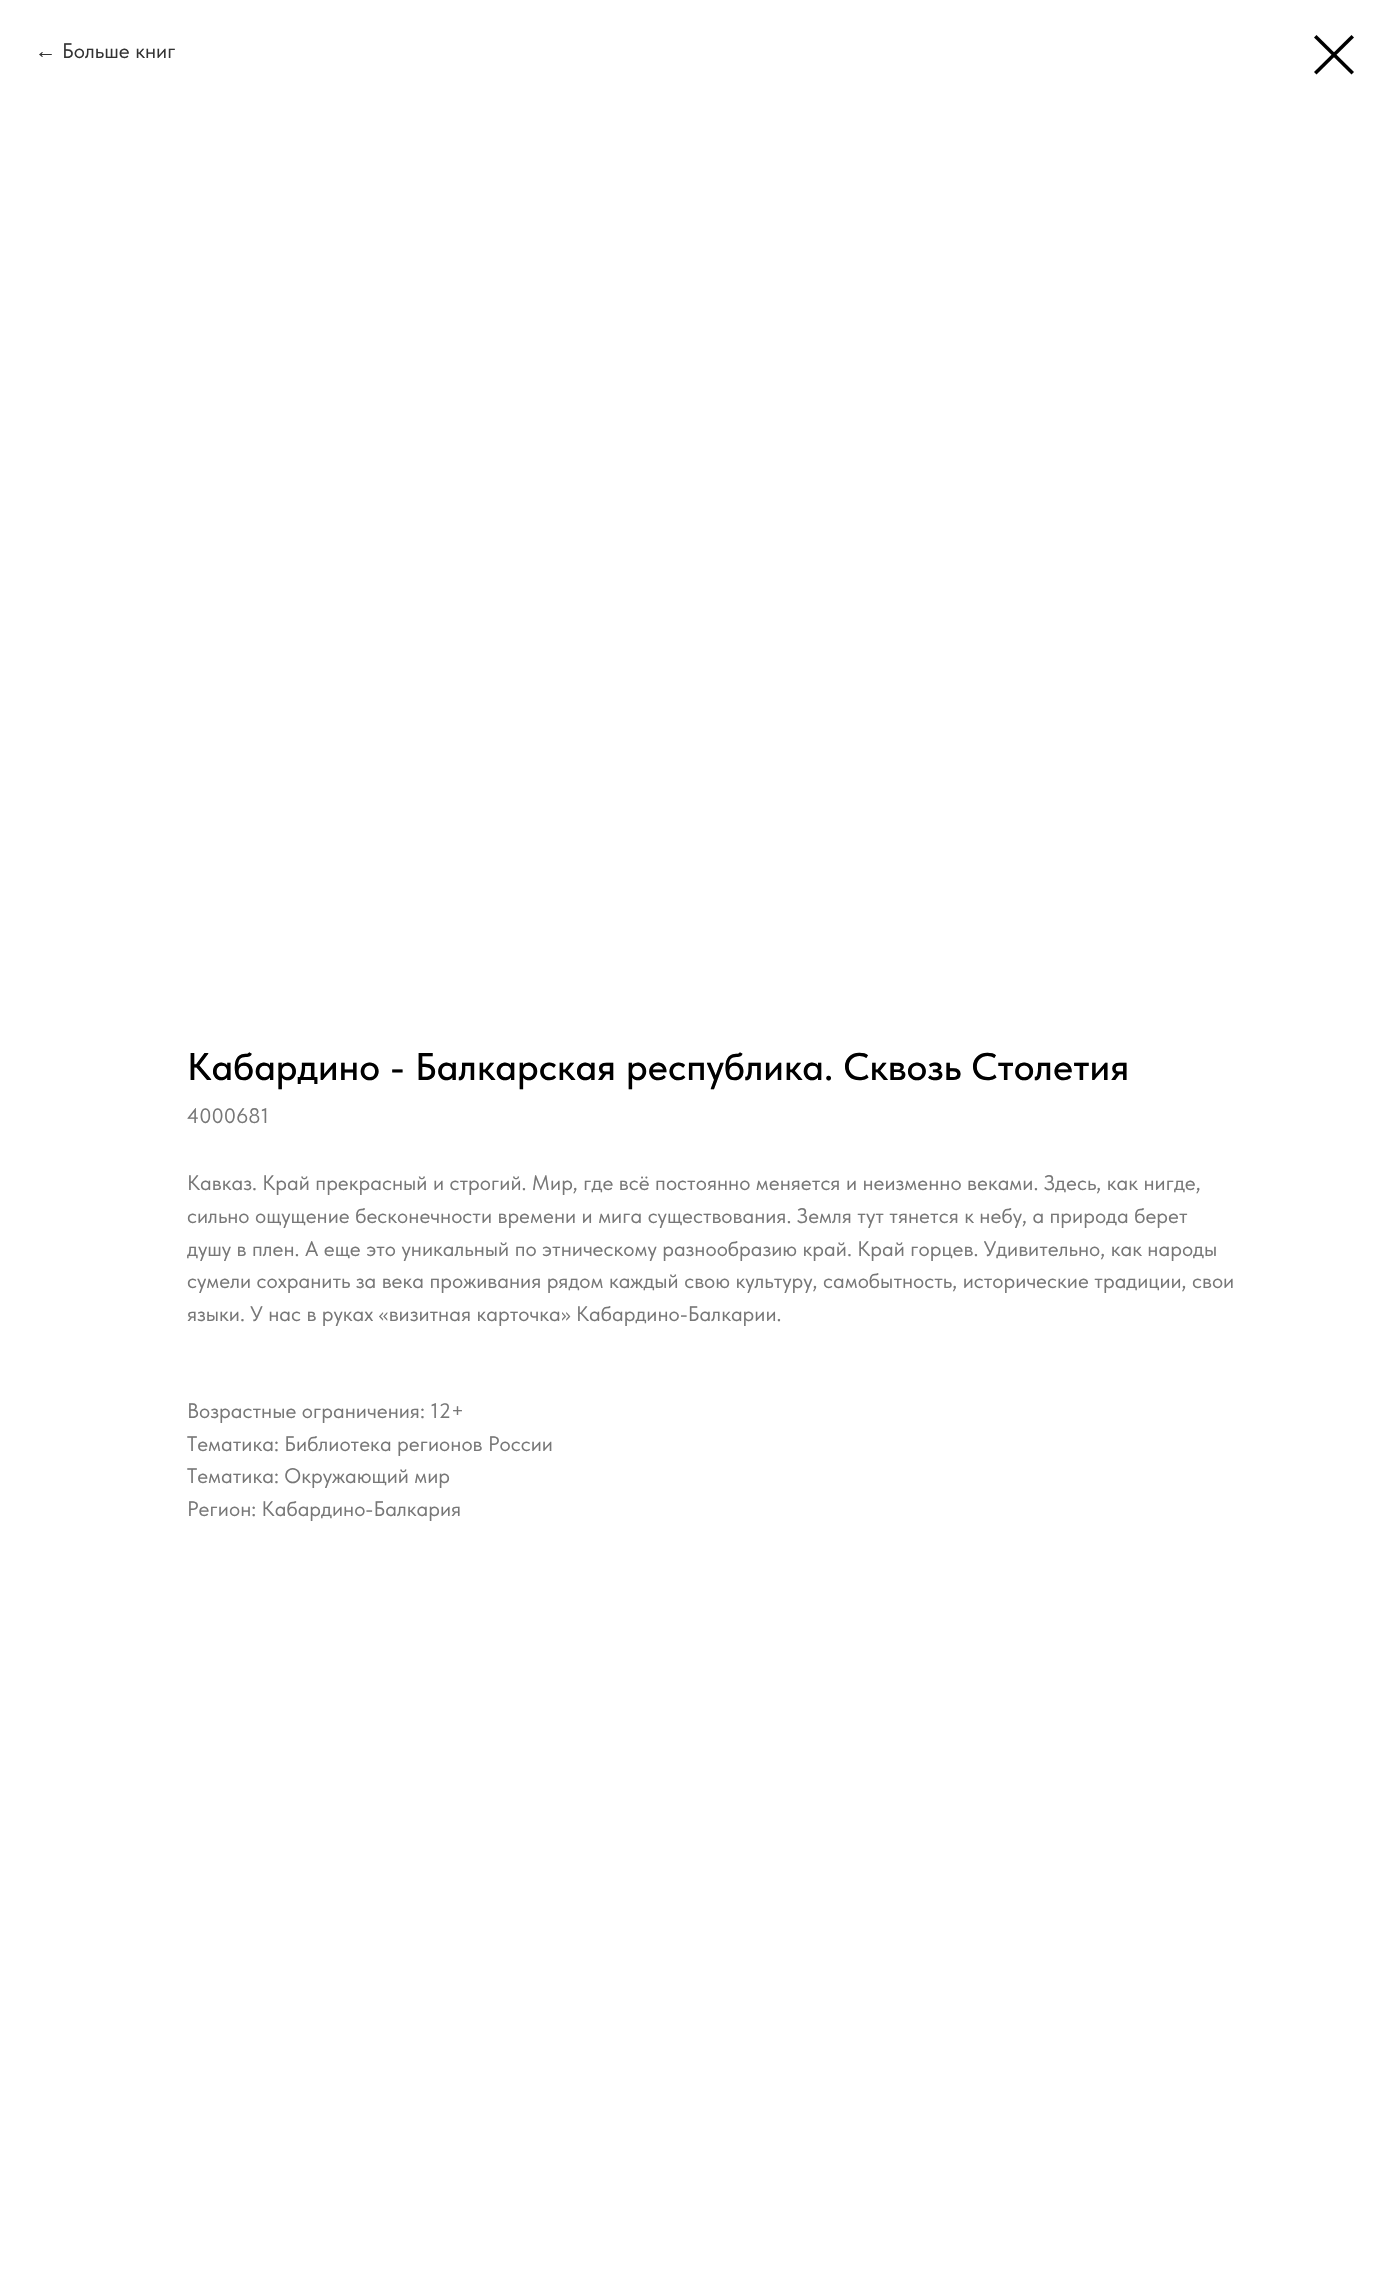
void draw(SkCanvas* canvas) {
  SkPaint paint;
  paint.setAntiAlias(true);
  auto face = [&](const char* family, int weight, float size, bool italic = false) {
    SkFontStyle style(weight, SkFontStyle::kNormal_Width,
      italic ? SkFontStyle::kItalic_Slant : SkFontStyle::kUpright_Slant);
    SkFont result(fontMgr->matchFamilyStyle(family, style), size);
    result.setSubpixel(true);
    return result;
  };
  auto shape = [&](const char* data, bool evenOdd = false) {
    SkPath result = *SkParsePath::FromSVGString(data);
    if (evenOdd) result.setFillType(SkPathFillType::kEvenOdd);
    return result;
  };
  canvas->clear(0xffffffff);
  paint.setColor(0xff000000);
  canvas->drawPath(shape("M1314 37.5L1316.5 35L1354 72L1351.5 74.5Z", true), paint);
  canvas->drawPath(shape("M1351.5 35L1354 37.5L1316.5 74.5L1314 72Z", true), paint);
  auto f0 = face("Liberation Sans", 400, 21);
  paint.setColor(0xff333333);
  canvas->drawString("←", 35, 58, f0, paint);
  auto f1 = face("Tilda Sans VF", 400, 21);
  canvas->drawString("Больше книг", 62, 58, f1, paint);
  auto f2 = face("Tilda Sans VF", 500, 38.5f);
  paint.setColor(0xff000000);
  canvas->drawString("Кабардино - Балкарская республика. Сквозь Столетия", 187, 1080, f2, paint);
  paint.setColor(0xff777777);
  {
    const struct { const char* s; float x, y; } items[] = {
      {"4000681", 187, 1123},
      {"Кавказ. Край прекрасный и строгий. Мир, где всё постоянно меняется и неизменно веками. Здесь, как нигде,", 187, 1190},
      {"сильно ощущение бесконечности времени и мига существования. Земля тут тянется к небу, а природа берет", 187, 1223},
      {"душу в плен. А еще это уникальный по этническому разнообразию край. Край горцев. Удивительно, как народы", 187, 1256},
      {"сумели сохранить за века проживания рядом каждый свою культуру, самобытность, исторические традиции, свои", 187, 1288},
      {"языки. У нас в руках «визитная карточка» Кабардино-Балкарии.", 187, 1321},
      {"Возрастные ограничения: 12+", 187, 1418},
      {"Тематика: Библиотека регионов России", 187, 1451},
      {"Тематика: Окружающий мир", 187, 1483},
      {"Регион: Кабардино-Балкария", 187, 1516},
    };
    for (auto [s, x, y] : items) {
      canvas->drawString(s, x, y, f1, paint);
    }
  }
}
